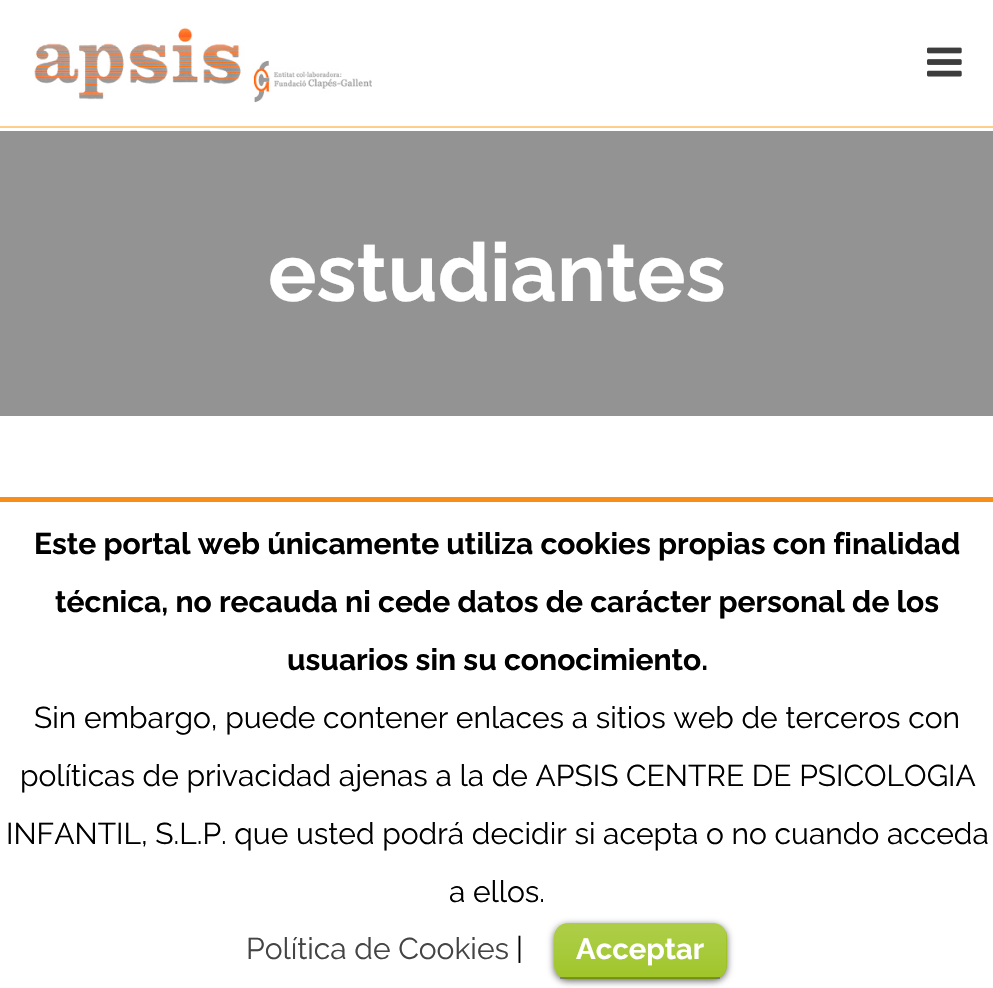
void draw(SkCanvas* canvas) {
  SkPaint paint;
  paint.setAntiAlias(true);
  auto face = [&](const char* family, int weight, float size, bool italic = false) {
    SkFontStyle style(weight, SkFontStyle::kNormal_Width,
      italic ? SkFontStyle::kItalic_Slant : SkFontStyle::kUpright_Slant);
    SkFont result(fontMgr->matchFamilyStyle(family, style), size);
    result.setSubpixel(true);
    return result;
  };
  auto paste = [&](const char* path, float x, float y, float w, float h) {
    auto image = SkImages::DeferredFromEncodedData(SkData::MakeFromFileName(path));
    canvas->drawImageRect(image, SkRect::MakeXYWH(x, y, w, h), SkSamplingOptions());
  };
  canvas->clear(0xffffffff);
  paint.setColor(0xfffecf8b);
  canvas->drawRect(SkRect::MakeXYWH(0, 126, 993, 2), paint);
  paste("img/1.png", 34, 27, 338, 76);
  paste("img/2.png", 927, 47, 35, 30);
  paint.setColor(0xff939393);
  canvas->drawRect(SkRect::MakeXYWH(0, 131, 993, 285), paint);
  paint.setColor(0xfff88d18);
  canvas->drawRect(SkRect::MakeXYWH(0, 497, 993, 5), paint);
  paint.setColor(0x99000000);
  paint.setMaskFilter(SkMaskFilter::MakeBlur(kNormal_SkBlurStyle, 3.5f));
  canvas->drawRoundRect(SkRect::MakeXYWH(554, 925, 173, 56), 14, 14, paint);
  paint.setMaskFilter(nullptr);
  paint.setColor(0xff91bd09);
  canvas->drawRoundRect(SkRect::MakeXYWH(554, 923, 173, 56), 14, 14, paint);
  paste("img/3.png", 554, 923, 173, 56);
  paint.setColor(0x40000000);
  canvas->drawRect(SkRect::MakeXYWH(560, 977, 160, 2), paint);
  auto f0 = face("Raleway", 700, 81);
  paint.setColor(0xffffffff);
  canvas->drawString("estudiantes", 268, 301, f0, paint);
  auto f1 = face("Raleway", 700, 30);
  paint.setColor(0xff000000);
  {
    const struct { const char* s; float x, y; } items[] = {
      {"Este portal web únicamente utiliza cookies propias con finalidad", 34, 554},
      {"técnica, no recauda ni cede datos de carácter personal de los", 55, 612},
      {"usuarios sin su conocimiento.", 287, 670},
    };
    for (auto [s, x, y] : items) {
      canvas->drawString(s, x, y, f1, paint);
    }
  }
  auto f2 = face("Raleway", 400, 30);
  {
    const struct { const char* s; float x, y; } items[] = {
      {"Sin embargo, puede contener enlaces a sitios web de terceros con", 34, 728},
      {"políticas de privacidad ajenas a la de APSIS CENTRE DE PSICOLOGIA", 20, 786},
      {"INFANTIL, S.L.P. que usted podrá decidir si acepta o no cuando acceda", 6, 844},
      {"a ellos.", 449, 902},
    };
    for (auto [s, x, y] : items) {
      canvas->drawString(s, x, y, f2, paint);
    }
  }
  paint.setColor(0xff444444);
  canvas->drawString("Política de Cookies", 246, 959, f2, paint);
  paint.setColor(0xff000000);
  canvas->drawString("|", 516, 959, f2, paint);
  auto f3 = face("Raleway", 700, 29.25f);
  paint.setColor(0xffffffff);
  canvas->drawString("Acceptar", 576, 959, f3, paint);
}
